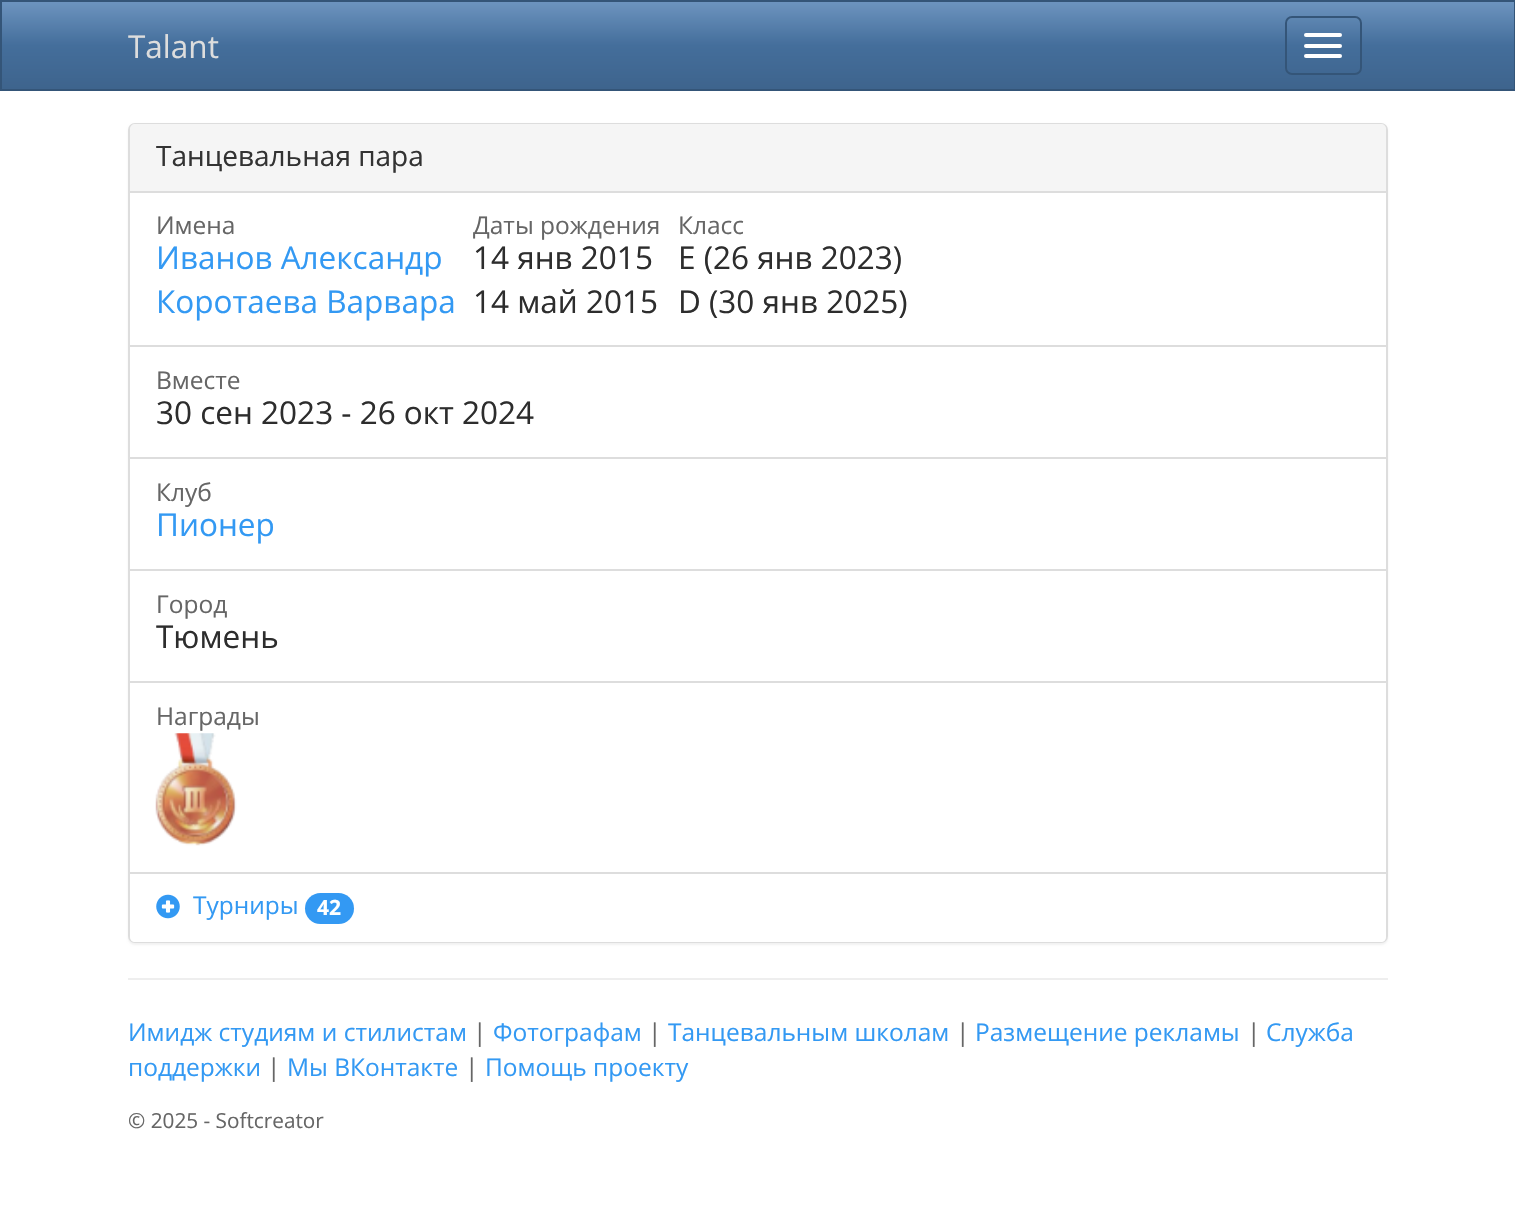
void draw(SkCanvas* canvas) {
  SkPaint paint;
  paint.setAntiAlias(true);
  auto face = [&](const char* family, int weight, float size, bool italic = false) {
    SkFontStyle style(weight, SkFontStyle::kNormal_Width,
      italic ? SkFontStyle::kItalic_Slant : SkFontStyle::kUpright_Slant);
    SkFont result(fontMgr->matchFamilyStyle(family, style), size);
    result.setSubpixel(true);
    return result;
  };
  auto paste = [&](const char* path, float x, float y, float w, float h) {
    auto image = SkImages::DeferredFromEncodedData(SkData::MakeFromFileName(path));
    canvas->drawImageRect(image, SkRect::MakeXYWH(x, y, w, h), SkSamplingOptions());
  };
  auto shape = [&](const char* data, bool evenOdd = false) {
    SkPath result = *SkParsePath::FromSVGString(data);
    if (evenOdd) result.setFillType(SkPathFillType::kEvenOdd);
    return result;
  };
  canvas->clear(0xffffffff);
  {
    const SkColor colors[] = {0xff6d94bf, 0xff446e9b, 0xff3e648d};
    const float stops[] = {0, 0.5f, 1};
    const SkPoint ends[] = {{758, 1.7f}, {758, 89}};
    paint.setShader(SkGradientShader::MakeLinear(ends, colors, stops, 3, SkTileMode::kClamp));
    paint.setAlpha(255);
  }
  canvas->drawRect(SkRect::MakeXYWH(2, 2, 1512, 87), paint);
  paint.setStroke(true);
  paint.setStrokeWidth(2);
  paint.setShader(nullptr);
  paint.setColor(0xff345578);
  canvas->drawRect(SkRect::MakeXYWH(1, 1, 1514, 89), paint);
  canvas->drawRoundRect(SkRect::MakeXYWH(1286, 17, 75, 57), 6, 6, paint);
  paint.setStroke(false);
  paint.setColor(0xffffffff);
  canvas->drawRoundRect(SkRect::MakeXYWH(1304, 33, 38, 4), 2, 2, paint);
  canvas->drawRoundRect(SkRect::MakeXYWH(1304, 44, 38, 4), 2, 2, paint);
  canvas->drawRoundRect(SkRect::MakeXYWH(1304, 54, 38, 4), 2, 2, paint);
  paint.setColor(0x0d000000);
  paint.setMaskFilter(SkMaskFilter::MakeBlur(kNormal_SkBlurStyle, 1));
  canvas->drawRoundRect(SkRect::MakeXYWH(128, 124, 1260, 821), 7, 7, paint);
  paint.setMaskFilter(nullptr);
  paint.setColor(0xffffffff);
  canvas->drawRoundRect(SkRect::MakeXYWH(129, 124, 1258, 818), 6, 6, paint);
  paint.setStroke(true);
  paint.setColor(0xffdddddd);
  canvas->drawRoundRect(SkRect::MakeXYWH(129, 124, 1258, 818), 6, 6, paint);
  paint.setStroke(false);
  paint.setColor(0xfff5f5f5);
  canvas->drawPath(shape("M135 124H1381C1384 124 1386 126 1386 129V193H130V129C130 126 132 124 135 124Z"), paint);
  {
    const struct { float x, y, w, h; SkColor color; } items[] = {
      {130, 191, 1256, 2, 0xffdddddd},
      {130, 345, 1256, 2, 0xffdddddd},
      {130, 457, 1256, 2, 0xffdddddd},
      {130, 569, 1256, 2, 0xffdddddd},
      {130, 681, 1256, 2, 0xffdddddd},
    };
    for (auto [x, y, w, h, color] : items) {
      paint.setColor(color);
      canvas->drawRect(SkRect::MakeXYWH(x, y, w, h), paint);
    }
  }
  paste("img/1.png", 155, 733, 82, 113);
  paint.setColor(0xffffffff);
  canvas->drawPath(shape("M130 872H1386V937C1386 940 1384 942 1381 942H135C132 942 130 940 130 937Z"), paint);
  paint.setColor(0xffdddddd);
  canvas->drawRect(SkRect::MakeXYWH(130, 872, 1256, 2), paint);
  paste("img/2.png", 156, 894, 24, 25);
  paint.setColor(0xff3399f3);
  canvas->drawRoundRect(SkRect::MakeXYWH(305, 893, 49, 31), 15.5f, 15.5f, paint);
  paint.setColor(0xffeeeeee);
  canvas->drawRect(SkRect::MakeXYWH(128, 978, 1260, 2), paint);
  auto f0 = face("Open Sans", 400, 31.5f);
  paint.setColor(0xffdddddd);
  canvas->drawString("Talant", 128, 58, f0, paint);
  auto f1 = face("Open Sans", 400, 28);
  paint.setColor(0xff333333);
  canvas->drawString("Танцевальная пара", 156, 166, f1, paint);
  auto f2 = face("Open Sans", 400, 24.5f);
  paint.setColor(0xff666666);
  {
    const struct { const char* s; float x, y; } items[] = {
      {"Имена", 156, 234},
      {"Даты рождения", 473, 234},
      {"Класс", 678, 234},
    };
    for (auto [s, x, y] : items) {
      canvas->drawString(s, x, y, f2, paint);
    }
  }
  paint.setColor(0xff3399f3);
  canvas->drawString("Иванов Александр", 156, 269, f0, paint);
  paint.setColor(0xff2d2d2d);
  canvas->drawString("14 янв 2015", 473, 269, f0, paint);
  canvas->drawString("E (26 янв 2023)", 678, 269, f0, paint);
  paint.setColor(0xff3399f3);
  canvas->drawString("Коротаева Варвара", 156, 313, f0, paint);
  paint.setColor(0xff2d2d2d);
  canvas->drawString("14 май 2015", 473, 313, f0, paint);
  canvas->drawString("D (30 янв 2025)", 678, 313, f0, paint);
  paint.setColor(0xff666666);
  canvas->drawString("Вместе", 156, 389, f2, paint);
  paint.setColor(0xff2d2d2d);
  canvas->drawString("30 сен 2023 - 26 окт 2024", 156, 424, f0, paint);
  paint.setColor(0xff666666);
  canvas->drawString("Клуб", 156, 501, f2, paint);
  paint.setColor(0xff3399f3);
  canvas->drawString("Пионер", 156, 536, f0, paint);
  paint.setColor(0xff666666);
  canvas->drawString("Город", 156, 613, f2, paint);
  paint.setColor(0xff2d2d2d);
  canvas->drawString("Тюмень", 156, 648, f0, paint);
  paint.setColor(0xff666666);
  canvas->drawString("Награды", 156, 725, f2, paint);
  paint.setColor(0xff3399f3);
  canvas->drawString("Турниры", 193, 914, f2, paint);
  auto f3 = face("Open Sans", 700, 21);
  paint.setColor(0xffffffff);
  canvas->drawString("42", 317, 915, f3, paint);
  paint.setColor(0xff3399f3);
  canvas->drawString("Имидж студиям и стилистам", 128, 1041, f2, paint);
  paint.setColor(0xff666666);
  canvas->drawString("|", 473, 1041, f2, paint);
  paint.setColor(0xff3399f3);
  canvas->drawString("Фотографам", 493, 1041, f2, paint);
  paint.setColor(0xff666666);
  canvas->drawString("|", 648, 1041, f2, paint);
  paint.setColor(0xff3399f3);
  canvas->drawString("Танцевальным школам", 668, 1041, f2, paint);
  paint.setColor(0xff666666);
  canvas->drawString("|", 956, 1041, f2, paint);
  paint.setColor(0xff3399f3);
  canvas->drawString("Размещение рекламы", 975, 1041, f2, paint);
  paint.setColor(0xff666666);
  canvas->drawString("|", 1247, 1041, f2, paint);
  paint.setColor(0xff3399f3);
  canvas->drawString("Служба", 1266, 1041, f2, paint);
  canvas->drawString("поддержки", 128, 1076, f2, paint);
  paint.setColor(0xff666666);
  canvas->drawString("|", 267, 1076, f2, paint);
  paint.setColor(0xff3399f3);
  canvas->drawString("Мы ВКонтакте", 287, 1076, f2, paint);
  paint.setColor(0xff666666);
  canvas->drawString("|", 465, 1076, f2, paint);
  paint.setColor(0xff3399f3);
  canvas->drawString("Помощь проекту", 485, 1076, f2, paint);
  auto f4 = face("Open Sans", 400, 20.75f);
  paint.setColor(0xff666666);
  canvas->drawString("© 2025 - Softcreator", 128, 1128, f4, paint);
}
